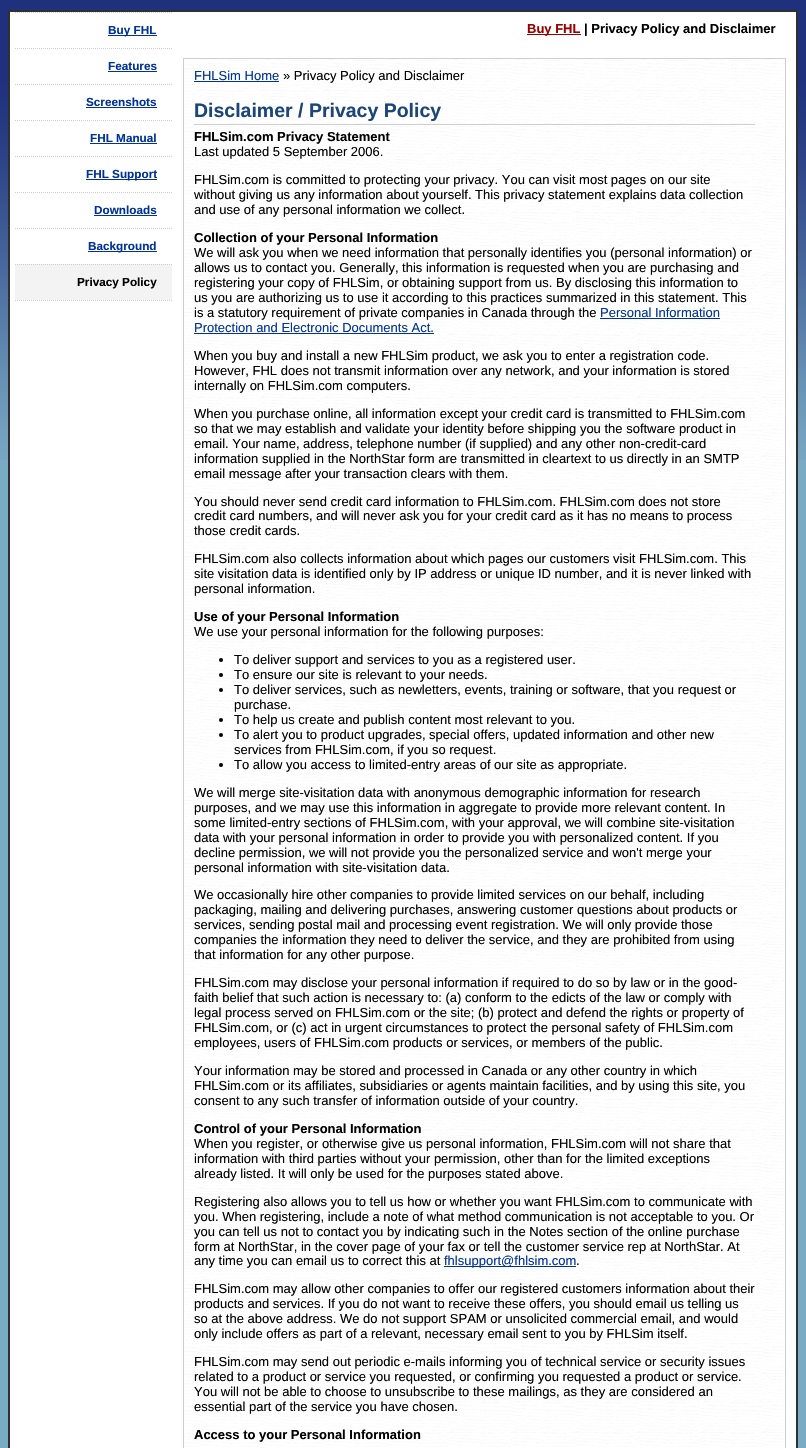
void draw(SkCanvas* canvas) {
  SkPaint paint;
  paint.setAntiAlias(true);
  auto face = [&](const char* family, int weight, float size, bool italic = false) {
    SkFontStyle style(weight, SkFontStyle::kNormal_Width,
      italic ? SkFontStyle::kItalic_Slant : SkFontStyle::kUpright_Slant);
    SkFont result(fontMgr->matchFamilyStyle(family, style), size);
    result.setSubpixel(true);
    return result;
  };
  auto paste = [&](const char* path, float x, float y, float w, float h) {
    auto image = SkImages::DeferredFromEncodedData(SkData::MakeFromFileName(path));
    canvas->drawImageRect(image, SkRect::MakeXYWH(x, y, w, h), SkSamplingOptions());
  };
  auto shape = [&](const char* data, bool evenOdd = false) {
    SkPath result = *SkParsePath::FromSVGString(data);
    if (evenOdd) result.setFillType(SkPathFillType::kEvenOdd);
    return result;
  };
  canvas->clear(0xff7aabc4);
  paste("img/1.png", 0, 0, 806, 460);
  paint.setColor(0xffffffff);
  canvas->drawRect(SkRect::MakeXYWH(9, 11, 788, 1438), paint);
  paint.setStroke(true);
  paint.setStrokeWidth(2);
  paint.setColor(0xff303030);
  canvas->drawRect(SkRect::MakeXYWH(9, 11, 788, 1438), paint);
  paint.setStrokeWidth(1);
  paint.setColor(0xffcfcfcf);
  paint.setPathEffect(SkDashPathEffect::Make({{1, 1}}, 0));
  canvas->drawPath(shape("M15 300.5H172"), paint);
  paint.setPathEffect(nullptr);
  paint.setPathEffect(SkDashPathEffect::Make({{1, 1}}, 0));
  canvas->drawPath(shape("M15 12.5H172"), paint);
  paint.setPathEffect(nullptr);
  paint.setStroke(false);
  paint.setColor(0xff003399);
  canvas->drawRect(SkRect::MakeXYWH(108, 35, 49, 1), paint);
  paint.setStroke(true);
  paint.setColor(0xffcfcfcf);
  paint.setPathEffect(SkDashPathEffect::Make({{1, 1}}, 0));
  canvas->drawPath(shape("M15 48.5H172"), paint);
  paint.setPathEffect(nullptr);
  paint.setStroke(false);
  paint.setColor(0xff003399);
  canvas->drawRect(SkRect::MakeXYWH(108, 71, 49, 1), paint);
  paint.setStroke(true);
  paint.setColor(0xffcfcfcf);
  paint.setPathEffect(SkDashPathEffect::Make({{1, 1}}, 0));
  canvas->drawPath(shape("M15 84.5H172"), paint);
  paint.setPathEffect(nullptr);
  paint.setStroke(false);
  paint.setColor(0xff003399);
  canvas->drawRect(SkRect::MakeXYWH(86, 107, 71, 1), paint);
  paint.setStroke(true);
  paint.setColor(0xffcfcfcf);
  paint.setPathEffect(SkDashPathEffect::Make({{1, 1}}, 0));
  canvas->drawPath(shape("M15 120.5H172"), paint);
  paint.setPathEffect(nullptr);
  paint.setStroke(false);
  paint.setColor(0xff003399);
  canvas->drawRect(SkRect::MakeXYWH(90, 143, 67, 1), paint);
  paint.setStroke(true);
  paint.setColor(0xffcfcfcf);
  paint.setPathEffect(SkDashPathEffect::Make({{1, 1}}, 0));
  canvas->drawPath(shape("M15 156.5H172"), paint);
  paint.setPathEffect(nullptr);
  paint.setStroke(false);
  paint.setColor(0xff003399);
  canvas->drawRect(SkRect::MakeXYWH(86, 179, 71, 1), paint);
  paint.setStroke(true);
  paint.setColor(0xffcfcfcf);
  paint.setPathEffect(SkDashPathEffect::Make({{1, 1}}, 0));
  canvas->drawPath(shape("M15 192.5H172"), paint);
  paint.setPathEffect(nullptr);
  paint.setStroke(false);
  paint.setColor(0xff003399);
  canvas->drawRect(SkRect::MakeXYWH(94, 215, 63, 1), paint);
  paint.setStroke(true);
  paint.setColor(0xffcfcfcf);
  paint.setPathEffect(SkDashPathEffect::Make({{1, 1}}, 0));
  canvas->drawPath(shape("M15 228.5H172"), paint);
  paint.setPathEffect(nullptr);
  paint.setStroke(false);
  paint.setColor(0xff003399);
  canvas->drawRect(SkRect::MakeXYWH(88, 251, 69, 1), paint);
  paint.setColor(0xfff3f3f3);
  canvas->drawRect(SkRect::MakeXYWH(15, 264, 157, 36), paint);
  paint.setStroke(true);
  paint.setColor(0xffcfcfcf);
  paint.setPathEffect(SkDashPathEffect::Make({{1, 1}}, 0));
  canvas->drawPath(shape("M15 264.5H172"), paint);
  paint.setPathEffect(nullptr);
  paint.setStroke(false);
  paint.setColor(0xff990000);
  canvas->drawRect(SkRect::MakeXYWH(527, 34, 54, 1), paint);
  paste("img/2.png", 184, 59, 601, 1388);
  paint.setStroke(true);
  paint.setColor(0xffcfcfcf);
  canvas->drawRect(SkRect::MakeXYWH(183.5f, 58.5f, 602, 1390), paint);
  paint.setStroke(false);
  {
    const struct { float x, y, w, h; SkColor color; } items[] = {
      {194, 81, 85, 1, 0xff003399},
      {194, 124, 561, 1, 0xffcfcfcf},
      {600, 318, 120, 1, 0xff003399},
      {194, 333, 240, 1, 0xff003399},
    };
    for (auto [x, y, w, h, color] : items) {
      paint.setColor(color);
      canvas->drawRect(SkRect::MakeXYWH(x, y, w, h), paint);
    }
  }
  paint.setColor(0xff000000);
  canvas->drawCircle(221, 660, 2, paint);
  canvas->drawCircle(221, 675, 2, paint);
  canvas->drawCircle(221, 690, 2, paint);
  canvas->drawCircle(221, 720, 2, paint);
  canvas->drawCircle(221, 735, 2, paint);
  canvas->drawCircle(221, 765, 2, paint);
  paint.setColor(0xff003399);
  canvas->drawRect(SkRect::MakeXYWH(444, 1266, 132, 1), paint);
  auto f0 = face("Liberation Sans", 700, 11.75f);
  {
    const struct { const char* s; float x, y; } items[] = {
      {"Buy FHL", 108, 34},
      {"Features", 108, 70},
      {"Screenshots", 86, 106},
      {"FHL Manual", 90, 142},
      {"FHL Support", 86, 178},
      {"Downloads", 94, 214},
      {"Background", 88, 250},
    };
    for (auto [s, x, y] : items) {
      canvas->drawString(s, x, y, f0, paint);
    }
  }
  paint.setColor(0xff000000);
  canvas->drawString("Privacy Policy", 77, 286, f0, paint);
  auto f1 = face("Liberation Sans", 700, 13);
  paint.setColor(0xff990000);
  canvas->drawString("Buy FHL", 527, 33, f1, paint);
  paint.setColor(0xff000000);
  canvas->drawString("| Privacy Policy and Disclaimer", 584, 33, f1, paint);
  auto f2 = face("Liberation Sans", 400, 13);
  paint.setColor(0xff003399);
  canvas->drawString("FHLSim Home", 194, 80, f2, paint);
  paint.setColor(0xff000000);
  canvas->drawString("» Privacy Policy and Disclaimer", 283, 80, f2, paint);
  auto f3 = face("Liberation Sans", 700, 19.5f);
  paint.setColor(0xff1b4677);
  canvas->drawString("Disclaimer / Privacy Policy", 194, 117, f3, paint);
  paint.setColor(0xff000000);
  canvas->drawString("FHLSim.com Privacy Statement", 194, 141, f1, paint);
  {
    const struct { const char* s; float x, y; } items[] = {
      {"Last updated 5 September 2006.", 194, 156},
      {"FHLSim.com is committed to protecting your privacy. You can visit most pages on our site", 194, 184},
      {"without giving us any information about yourself. This privacy statement explains data collection", 194, 199},
      {"and use of any personal information we collect.", 194, 214},
    };
    for (auto [s, x, y] : items) {
      canvas->drawString(s, x, y, f2, paint);
    }
  }
  canvas->drawString("Collection of your Personal Information", 194, 242, f1, paint);
  {
    const struct { const char* s; float x, y; } items[] = {
      {"We will ask you when we need information that personally identifies you (personal information) or", 194, 257},
      {"allows us to contact you. Generally, this information is requested when you are purchasing and", 194, 272},
      {"registering your copy of FHLSim, or obtaining support from us. By disclosing this information to", 194, 287},
      {"us you are authorizing us to use it according to this practices summarized in this statement. This", 194, 302},
      {"is a statutory requirement of private companies in Canada through the", 194, 317},
    };
    for (auto [s, x, y] : items) {
      canvas->drawString(s, x, y, f2, paint);
    }
  }
  paint.setColor(0xff003399);
  canvas->drawString("Personal Information", 600, 317, f2, paint);
  canvas->drawString("Protection and Electronic Documents Act.", 194, 332, f2, paint);
  paint.setColor(0xff000000);
  {
    const struct { const char* s; float x, y; } items[] = {
      {"When you buy and install a new FHLSim product, we ask you to enter a registration code.", 194, 360},
      {"However, FHL does not transmit information over any network, and your information is stored", 194, 375},
      {"internally on FHLSim.com computers.", 194, 390},
      {"When you purchase online, all information except your credit card is transmitted to FHLSim.com", 194, 418},
      {"so that we may establish and validate your identity before shipping you the software product in", 194, 433},
      {"email. Your name, address, telephone number (if supplied) and any other non-credit-card", 194, 448},
      {"information supplied in the NorthStar form are transmitted in cleartext to us directly in an SMTP", 194, 463},
      {"email message after your transaction clears with them.", 194, 478},
      {"You should never send credit card information to FHLSim.com. FHLSim.com does not store", 194, 506},
      {"credit card numbers, and will never ask you for your credit card as it has no means to process", 194, 520},
      {"those credit cards.", 194, 535},
      {"FHLSim.com also collects information about which pages our customers visit FHLSim.com. This", 194, 563},
      {"site visitation data is identified only by IP address or unique ID number, and it is never linked with", 194, 578},
      {"personal information.", 194, 593},
    };
    for (auto [s, x, y] : items) {
      canvas->drawString(s, x, y, f2, paint);
    }
  }
  canvas->drawString("Use of your Personal Information", 194, 621, f1, paint);
  {
    const struct { const char* s; float x, y; } items[] = {
      {"We use your personal information for the following purposes:", 194, 636},
      {"To deliver support and services to you as a registered user.", 234, 664},
      {"To ensure our site is relevant to your needs.", 234, 679},
      {"To deliver services, such as newletters, events, training or software, that you request or", 234, 694},
      {"purchase.", 234, 709},
      {"To help us create and publish content most relevant to you.", 234, 724},
      {"To alert you to product upgrades, special offers, updated information and other new", 234, 739},
      {"services from FHLSim.com, if you so request.", 234, 754},
      {"To allow you access to limited-entry areas of our site as appropriate.", 234, 769},
      {"We will merge site-visitation data with anonymous demographic information for research", 194, 797},
      {"purposes, and we may use this information in aggregate to provide more relevant content. In", 194, 812},
      {"some limited-entry sections of FHLSim.com, with your approval, we will combine site-visitation", 194, 827},
      {"data with your personal information in order to provide you with personalized content. If you", 194, 842},
      {"decline permission, we will not provide you the personalized service and won't merge your", 194, 857},
      {"personal information with site-visitation data.", 194, 872},
      {"We occasionally hire other companies to provide limited services on our behalf, including", 194, 899},
      {"packaging, mailing and delivering purchases, answering customer questions about products or", 194, 914},
      {"services, sending postal mail and processing event registration. We will only provide those", 194, 929},
      {"companies the information they need to deliver the service, and they are prohibited from using", 194, 944},
      {"that information for any other purpose.", 194, 959},
      {"FHLSim.com may disclose your personal information if required to do so by law or in the good-", 194, 987},
      {"faith belief that such action is necessary to: (a) conform to the edicts of the law or comply with", 194, 1002},
      {"legal process served on FHLSim.com or the site; (b) protect and defend the rights or property of", 194, 1017},
      {"FHLSim.com, or (c) act in urgent circumstances to protect the personal safety of FHLSim.com", 194, 1032},
      {"employees, users of FHLSim.com products or services, or members of the public.", 194, 1047},
      {"Your information may be stored and processed in Canada or any other country in which", 194, 1075},
      {"FHLSim.com or its affiliates, subsidiaries or agents maintain facilities, and by using this site, you", 194, 1090},
      {"consent to any such transfer of information outside of your country.", 194, 1105},
    };
    for (auto [s, x, y] : items) {
      canvas->drawString(s, x, y, f2, paint);
    }
  }
  canvas->drawString("Control of your Personal Information", 194, 1133, f1, paint);
  {
    const struct { const char* s; float x, y; } items[] = {
      {"When you register, or otherwise give us personal information, FHLSim.com will not share that", 194, 1148},
      {"information with third parties without your permission, other than for the limited exceptions", 194, 1163},
      {"already listed. It will only be used for the purposes stated above.", 194, 1178},
      {"Registering also allows you to tell us how or whether you want FHLSim.com to communicate with", 194, 1206},
      {"you. When registering, include a note of what method communication is not acceptable to you. Or", 194, 1221},
      {"you can tell us not to contact you by indicating such in the Notes section of the online purchase", 194, 1236},
      {"form at NorthStar, in the cover page of your fax or tell the customer service rep at NorthStar. At", 194, 1251},
      {"any time you can email us to correct this at", 194, 1265},
    };
    for (auto [s, x, y] : items) {
      canvas->drawString(s, x, y, f2, paint);
    }
  }
  paint.setColor(0xff003399);
  canvas->drawString("fhlsupport@fhlsim.com", 444, 1265, f2, paint);
  paint.setColor(0xff000000);
  {
    const struct { const char* s; float x, y; } items[] = {
      {".", 576, 1265},
      {"FHLSim.com may allow other companies to offer our registered customers information about their", 194, 1293},
      {"products and services. If you do not want to receive these offers, you should email us telling us", 194, 1308},
      {"so at the above address. We do not support SPAM or unsolicited commercial email, and would", 194, 1323},
      {"only include offers as part of a relevant, necessary email sent to you by FHLSim itself.", 194, 1338},
      {"FHLSim.com may send out periodic e-mails informing you of technical service or security issues", 194, 1366},
      {"related to a product or service you requested, or confirming you requested a product or service.", 194, 1381},
      {"You will not be able to choose to unsubscribe to these mailings, as they are considered an", 194, 1396},
      {"essential part of the service you have chosen.", 194, 1411},
    };
    for (auto [s, x, y] : items) {
      canvas->drawString(s, x, y, f2, paint);
    }
  }
  canvas->drawString("Access to your Personal Information", 194, 1439, f1, paint);
}
